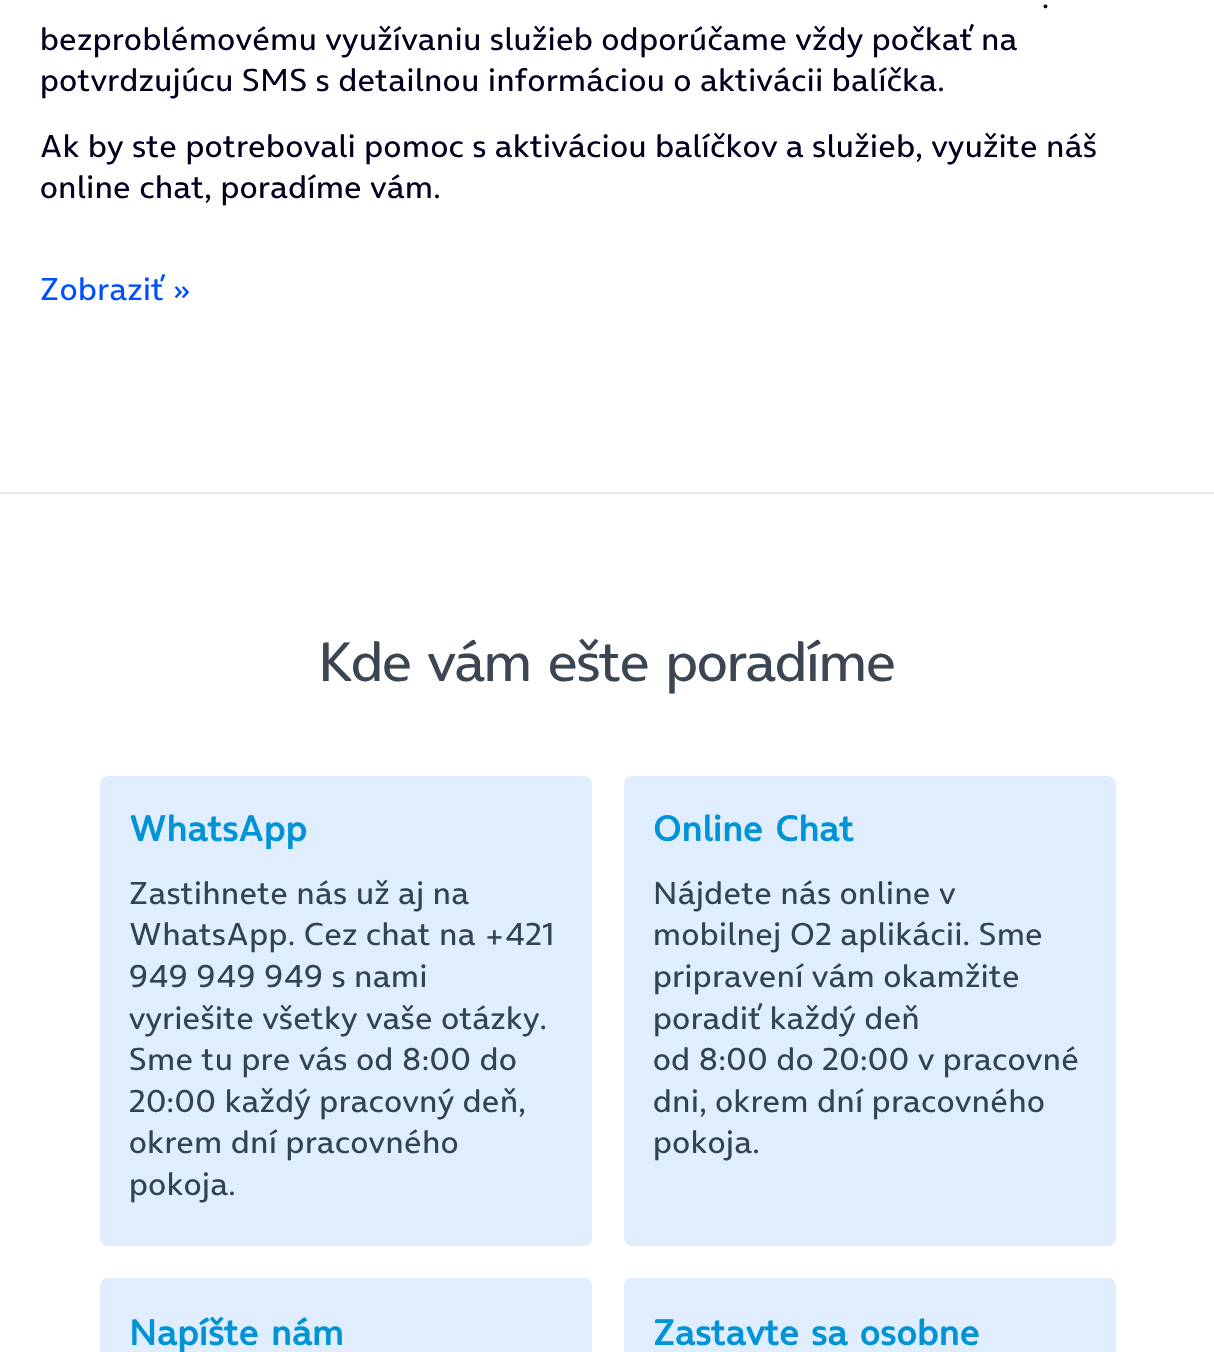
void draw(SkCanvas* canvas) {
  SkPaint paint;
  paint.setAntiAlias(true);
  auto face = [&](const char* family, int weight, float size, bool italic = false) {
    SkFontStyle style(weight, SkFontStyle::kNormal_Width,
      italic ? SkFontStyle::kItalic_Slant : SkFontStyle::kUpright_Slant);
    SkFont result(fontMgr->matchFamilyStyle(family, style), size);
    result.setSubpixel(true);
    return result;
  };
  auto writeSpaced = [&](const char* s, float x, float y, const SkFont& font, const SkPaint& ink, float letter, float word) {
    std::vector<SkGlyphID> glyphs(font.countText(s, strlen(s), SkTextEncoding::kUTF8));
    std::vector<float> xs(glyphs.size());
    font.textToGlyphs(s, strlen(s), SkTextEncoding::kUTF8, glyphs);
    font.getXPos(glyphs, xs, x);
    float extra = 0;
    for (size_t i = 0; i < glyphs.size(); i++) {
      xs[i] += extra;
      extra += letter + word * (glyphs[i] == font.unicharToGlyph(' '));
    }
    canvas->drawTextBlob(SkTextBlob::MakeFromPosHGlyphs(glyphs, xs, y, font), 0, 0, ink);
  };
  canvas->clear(0xffffffff);
  paint.setColor(0xffe5eaf0);
  canvas->drawRect(SkRect::MakeXYWH(0, 492, 1214, 2), paint);
  paint.setColor(0xffdfedff);
  canvas->drawRoundRect(SkRect::MakeXYWH(100, 776, 492, 470), 8, 8, paint);
  canvas->drawRoundRect(SkRect::MakeXYWH(624, 776, 492, 470), 8, 8, paint);
  canvas->drawRoundRect(SkRect::MakeXYWH(100, 1278, 492, 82), 8, 8, paint);
  canvas->drawRoundRect(SkRect::MakeXYWH(624, 1278, 492, 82), 8, 8, paint);
  auto f0 = face("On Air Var", 400, 32);
  paint.setColor(0xff00001e);
  {
    const struct { const char* s; float x, y; } items[] = {
      {".", 1042, 8},
      {"bezproblémovému využívaniu služieb odporúčame vždy počkať na", 40, 50},
      {"potvrdzujúcu SMS s detailnou informáciou o aktivácii balíčka.", 40, 91},
      {"Ak by ste potrebovali pomoc s aktiváciou balíčkov a služieb, využite náš", 40, 157},
      {"online chat, poradíme vám.", 40, 198},
    };
    for (auto [s, x, y] : items) {
      writeSpaced(s, x, y, f0, paint, 0.6f, 0);
    }
  }
  paint.setColor(0xff0050ff);
  writeSpaced("Zobraziť »", 40, 300, f0, paint, 0.6f, 0);
  auto f1 = face("On Air Var", 400, 56);
  paint.setColor(0xff3b4653);
  writeSpaced("Kde vám ešte poradíme", 318, 681, f1, paint, -1.25f, 4.5f);
  auto f2 = face("On Air Var", 700, 36);
  paint.setColor(0xff0093d5);
  writeSpaced("WhatsApp", 129, 841, f2, paint, 0.6f, 0);
  paint.setColor(0xff334155);
  {
    const struct { const char* s; float x, y; } items[] = {
      {"Zastihnete nás už aj na", 129, 904},
      {"WhatsApp. Cez chat na +421", 129, 945},
      {"949 949 949 s nami", 129, 987},
      {"vyriešite všetky vaše otázky.", 129, 1029},
      {"Sme tu pre vás od 8:00 do", 129, 1070},
      {"20:00 každý pracovný deň,", 129, 1112},
      {"okrem dní pracovného", 129, 1153},
      {"pokoja.", 129, 1195},
    };
    for (auto [s, x, y] : items) {
      writeSpaced(s, x, y, f0, paint, 0.6f, 0);
    }
  }
  paint.setColor(0xff0093d5);
  writeSpaced("Online Chat", 653, 841, f2, paint, 0.6f, 3);
  paint.setColor(0xff334155);
  {
    const struct { const char* s; float x, y; } items[] = {
      {"Nájdete nás online v", 653, 904},
      {"mobilnej O2 aplikácii. Sme", 653, 945},
      {"pripravení vám okamžite", 653, 987},
      {"poradiť každý deň", 653, 1029},
      {"od 8:00 do 20:00 v pracovné", 653, 1070},
      {"dni, okrem dní pracovného", 653, 1112},
      {"pokoja.", 653, 1153},
    };
    for (auto [s, x, y] : items) {
      writeSpaced(s, x, y, f0, paint, 0.6f, 0);
    }
  }
  paint.setColor(0xff0093d5);
  writeSpaced("Napíšte nám", 129, 1345, f2, paint, 0.6f, 3);
  writeSpaced("Zastavte sa osobne", 653, 1345, f2, paint, 0.6f, 3);
}
